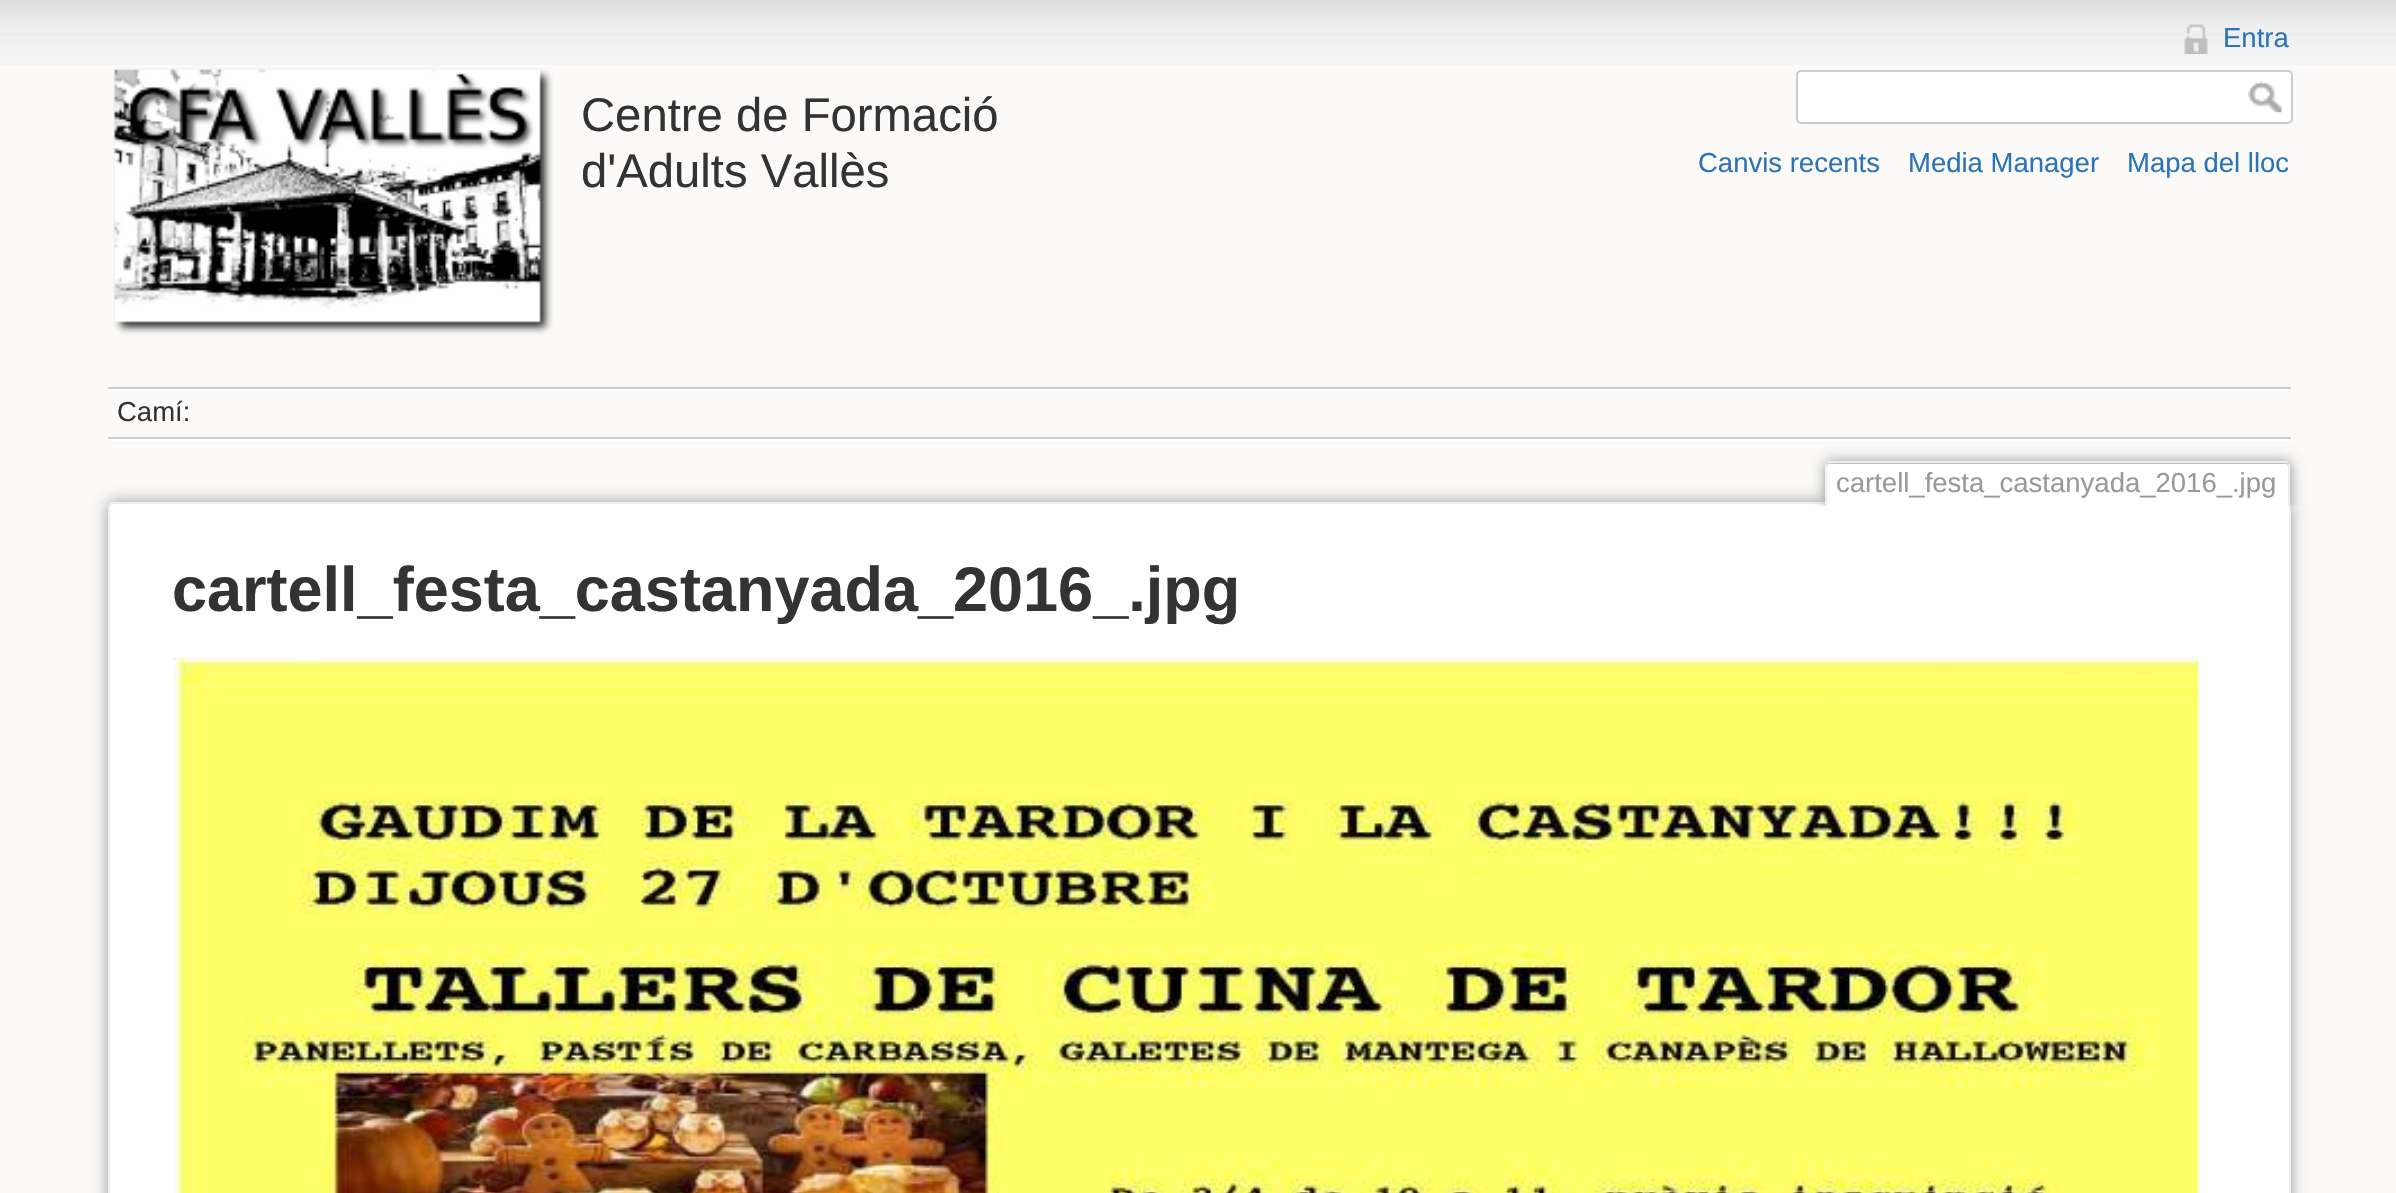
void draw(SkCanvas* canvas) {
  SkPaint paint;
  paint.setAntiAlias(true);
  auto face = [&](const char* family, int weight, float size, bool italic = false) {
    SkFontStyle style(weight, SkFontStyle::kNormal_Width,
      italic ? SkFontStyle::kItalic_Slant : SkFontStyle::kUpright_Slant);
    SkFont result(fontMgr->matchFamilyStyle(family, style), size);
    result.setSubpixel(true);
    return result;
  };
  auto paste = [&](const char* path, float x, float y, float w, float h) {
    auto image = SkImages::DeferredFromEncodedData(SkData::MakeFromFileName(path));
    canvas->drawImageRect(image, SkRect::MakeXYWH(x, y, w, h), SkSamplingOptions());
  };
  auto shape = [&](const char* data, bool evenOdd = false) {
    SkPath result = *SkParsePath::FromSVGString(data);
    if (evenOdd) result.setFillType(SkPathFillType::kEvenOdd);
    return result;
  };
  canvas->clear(0xfffbfaf9);
  paste("img/1.png", 0, 0, 2396, 65);
  paste("img/2.png", 113, 68, 440, 267);
  paste("img/3.png", 2184, 24, 24, 30);
  paint.setColor(0xffffffff);
  canvas->drawRoundRect(SkRect::MakeXYWH(1797, 71, 495, 52), 4, 4, paint);
  paint.setStroke(true);
  paint.setStrokeWidth(2);
  paint.setColor(0xffcccccc);
  canvas->drawRoundRect(SkRect::MakeXYWH(1797, 71, 495, 52), 4, 4, paint);
  paste("img/4.png", 2248, 81, 34, 32);
  paint.setStroke(false);
  {
    const struct { float x, y, w, h; SkColor color; } items[] = {
      {108, 387, 2183, 2, 0xffcccccc},
      {108, 439, 2183, 2, 0xffffffff},
      {108, 389, 2183, 2, 0xffffffff},
      {108, 437, 2183, 2, 0xffcccccc},
    };
    for (auto [x, y, w, h, color] : items) {
      paint.setColor(color);
      canvas->drawRect(SkRect::MakeXYWH(x, y, w, h), paint);
    }
  }
  paint.setColor(0xff999999);
  paint.setMaskFilter(SkMaskFilter::MakeBlur(kNormal_SkBlurStyle, 8));
  canvas->drawRoundRect(SkRect::MakeXYWH(108, 502, 2183, 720), 5, 5, paint);
  paint.setMaskFilter(nullptr);
  paint.setColor(0xffffffff);
  canvas->drawRoundRect(SkRect::MakeXYWH(109, 503, 2181, 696), 4, 4, paint);
  paint.setStroke(true);
  paint.setColor(0xffeeeeee);
  canvas->drawRoundRect(SkRect::MakeXYWH(109, 503, 2181, 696), 4, 4, paint);
  canvas->save();
  canvas->clipRect(SkRect::MakeXYWH(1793, 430, 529, 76));
  paint.setStroke(false);
  paint.setColor(0xff999999);
  paint.setMaskFilter(SkMaskFilter::MakeBlur(kNormal_SkBlurStyle, 7));
  canvas->drawRoundRect(SkRect::MakeXYWH(1825, 461, 466, 45), 5, 5, paint);
  paint.setMaskFilter(nullptr);
  canvas->restore();
  paint.setColor(0xffffffff);
  canvas->drawPath(shape("M1829 464H2286C2287 464 2288 465 2288 466V506H1827V466C1827 465 1828 464 1829 464Z"), paint);
  {
    const struct { float x, y, w, h; SkColor color; } items[] = {
      {1827, 461, 461, 2, 0xffeeeeee},
      {2288, 464, 2, 42, 0xffeeeeee},
      {1825, 464, 2, 42, 0xffeeeeee},
    };
    for (auto [x, y, w, h, color] : items) {
      paint.setColor(color);
      canvas->drawRect(SkRect::MakeXYWH(x, y, w, h), paint);
    }
  }
  paste("img/5.png", 173, 657, 2026, 536);
  auto f0 = face("Liberation Sans", 400, 47.25f);
  paint.setColor(0xff333333);
  canvas->drawString("Centre de Formació", 581, 131, f0, paint);
  canvas->drawString("d'Adults Vallès", 581, 187, f0, paint);
  auto f1 = face("Liberation Sans", 400, 27.5f);
  paint.setColor(0xff2b73b7);
  {
    const struct { const char* s; float x, y; } items[] = {
      {"Entra", 2223, 47},
      {"Canvis recents", 1698, 172},
      {"Media Manager", 1908, 172},
      {"Mapa del lloc", 2127, 172},
    };
    for (auto [s, x, y] : items) {
      canvas->drawString(s, x, y, f1, paint);
    }
  }
  paint.setColor(0xff333333);
  canvas->drawString("Camí:", 117, 421, f1, paint);
  paint.setColor(0xff999999);
  canvas->drawString("cartell_festa_castanyada_2016_.jpg", 1836, 492, f1, paint);
  auto f2 = face("Liberation Sans", 700, 63);
  paint.setColor(0xff333333);
  canvas->drawString("cartell_festa_castanyada_2016_.jpg", 172, 611, f2, paint);
}
